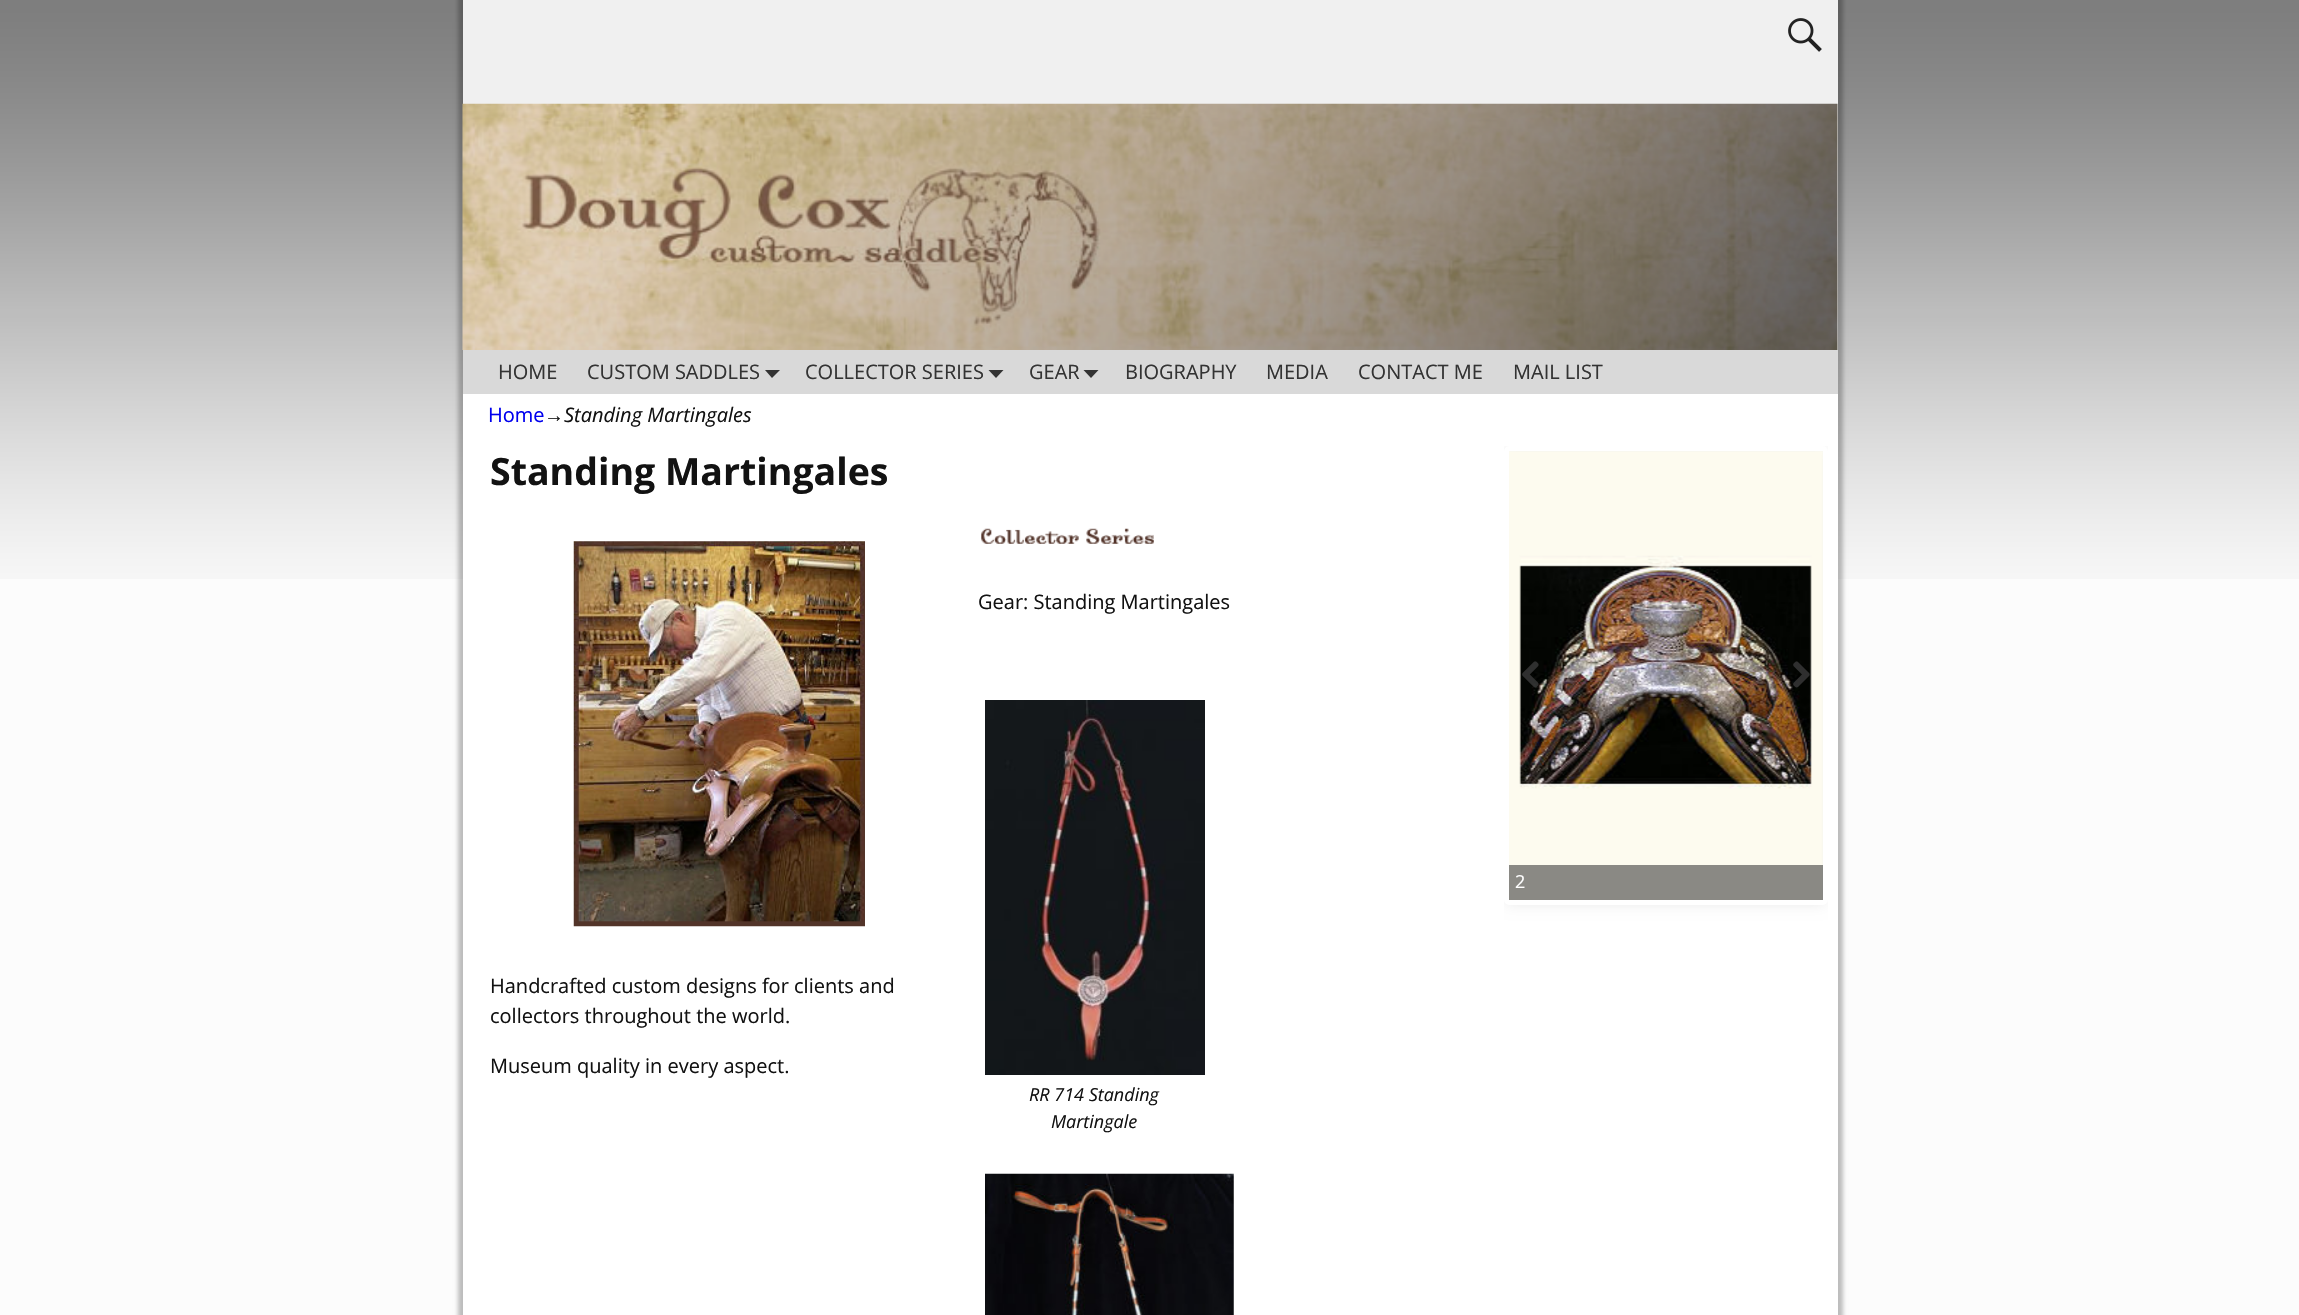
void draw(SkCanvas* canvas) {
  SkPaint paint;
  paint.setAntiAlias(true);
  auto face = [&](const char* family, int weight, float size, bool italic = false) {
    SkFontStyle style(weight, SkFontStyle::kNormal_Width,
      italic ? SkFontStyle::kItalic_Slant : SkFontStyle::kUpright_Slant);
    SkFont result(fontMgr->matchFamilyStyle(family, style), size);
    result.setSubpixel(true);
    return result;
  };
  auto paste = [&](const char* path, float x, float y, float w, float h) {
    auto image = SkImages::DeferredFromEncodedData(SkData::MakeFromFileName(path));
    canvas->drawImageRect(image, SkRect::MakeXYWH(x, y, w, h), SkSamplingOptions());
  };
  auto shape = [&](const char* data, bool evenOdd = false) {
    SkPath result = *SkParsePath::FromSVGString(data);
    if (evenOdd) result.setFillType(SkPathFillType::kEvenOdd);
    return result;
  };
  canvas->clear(0xfffcfcfc);
  paste("img/1.png", 0, 0, 2299, 579);
  paint.setColor(0x40000000);
  paint.setMaskFilter(SkMaskFilter::MakeBlur(kNormal_SkBlurStyle, 2));
  canvas->drawRect(SkRect::MakeXYWH(458, -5, 1385, 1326), paint);
  paint.setMaskFilter(nullptr);
  paint.setColor(0xffffffff);
  canvas->drawRect(SkRect::MakeXYWH(463, 394, 1375, 921), paint);
  paint.setColor(0xfff0f0f0);
  canvas->drawRect(SkRect::MakeXYWH(463, 0, 1375, 350), paint);
  paste("img/2.png", 1788, 18, 34, 34);
  paste("img/3.png", 462, 103, 1376, 247);
  paint.setColor(0xffd9d9d9);
  canvas->drawRect(SkRect::MakeXYWH(463, 350, 1375, 44), paint);
  paint.setColor(0xff333333);
  canvas->drawPath(shape("M765 370H780L772 378Z"), paint);
  canvas->drawPath(shape("M988.5 370H1003.5L996 378Z"), paint);
  canvas->drawPath(shape("M1083.5 370H1098.5L1091 378Z"), paint);
  paste("img/4.png", 573, 541, 292, 386);
  paste("img/5.png", 981, 528, 173, 16);
  paste("img/6.png", 985, 700, 220, 375);
  paste("img/7.png", 985, 1173, 249, 142);
  canvas->save();
  canvas->clipRect(SkRect::MakeXYWH(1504, 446, 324, 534));
  paint.setColor(0x1a000000);
  paint.setMaskFilter(SkMaskFilter::MakeBlur(kNormal_SkBlurStyle, 7.5f));
  canvas->drawRoundRect(SkRect::MakeXYWH(1506, 449, 319, 454), 2.5f, 2.5f, paint);
  paint.setMaskFilter(nullptr);
  canvas->restore();
  paint.setStroke(true);
  paint.setStrokeWidth(5);
  paint.setColor(0xffffffff);
  canvas->drawRoundRect(SkRect::MakeXYWH(1506.5f, 448.5f, 319, 454), 2.5f, 2.5f, paint);
  paste("img/10.png", 1509, 451, 314, 449);
  paste("img/8.png", 1522, 661, 17, 27);
  paste("img/9.png", 1793, 661, 17, 27);
  paint.setStroke(false);
  paint.setColor(0x87242424);
  canvas->drawRect(SkRect::MakeXYWH(1509, 865, 314, 35), paint);
  auto f0 = face("Open Sans", 400, 20);
  paint.setColor(0xff333333);
  {
    const struct { const char* s; float x, y; } items[] = {
      {"HOME", 498, 379},
      {"CUSTOM SADDLES", 587, 379},
      {"COLLECTOR SERIES", 805, 379},
      {"GEAR", 1029, 379},
      {"BIOGRAPHY", 1125, 379},
      {"MEDIA", 1266, 379},
      {"CONTACT ME", 1358, 379},
      {"MAIL LIST", 1513, 379},
    };
    for (auto [s, x, y] : items) {
      canvas->drawString(s, x, y, f0, paint);
    }
  }
  paint.setColor(0xff0000ee);
  canvas->drawString("Home", 488, 422, f0, paint);
  auto f1 = face("Liberation Sans", 400, 20);
  paint.setColor(0xff121212);
  canvas->drawString("→", 544, 422, f1, paint);
  auto f2 = face("Open Sans", 400, 20, true);
  canvas->drawString("Standing Martingales", 564, 422, f2, paint);
  auto f3 = face("Open Sans", 700, 37.5f);
  canvas->drawString("Standing Martingales", 490, 485, f3, paint);
  {
    const struct { const char* s; float x, y; } items[] = {
      {"Handcrafted custom designs for clients and", 490, 993},
      {"collectors throughout the world.", 490, 1023},
      {"Museum quality in every aspect.", 490, 1073},
      {"Gear: Standing Martingales", 978, 609},
    };
    for (auto [s, x, y] : items) {
      canvas->drawString(s, x, y, f0, paint);
    }
  }
  auto f4 = face("Open Sans", 400, 18, true);
  canvas->drawString("RR 714 Standing", 1029, 1101, f4, paint);
  canvas->drawString("Martingale", 1051, 1128, f4, paint);
  auto f5 = face("Open Sans", 400, 18);
  paint.setColor(0xffffffff);
  canvas->drawString("2", 1515, 888, f5, paint);
}
